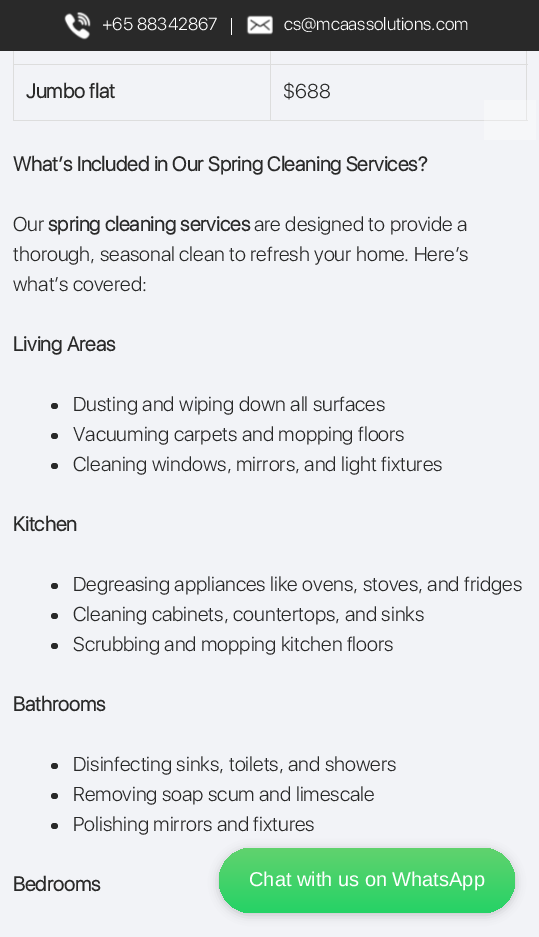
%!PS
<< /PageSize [539 937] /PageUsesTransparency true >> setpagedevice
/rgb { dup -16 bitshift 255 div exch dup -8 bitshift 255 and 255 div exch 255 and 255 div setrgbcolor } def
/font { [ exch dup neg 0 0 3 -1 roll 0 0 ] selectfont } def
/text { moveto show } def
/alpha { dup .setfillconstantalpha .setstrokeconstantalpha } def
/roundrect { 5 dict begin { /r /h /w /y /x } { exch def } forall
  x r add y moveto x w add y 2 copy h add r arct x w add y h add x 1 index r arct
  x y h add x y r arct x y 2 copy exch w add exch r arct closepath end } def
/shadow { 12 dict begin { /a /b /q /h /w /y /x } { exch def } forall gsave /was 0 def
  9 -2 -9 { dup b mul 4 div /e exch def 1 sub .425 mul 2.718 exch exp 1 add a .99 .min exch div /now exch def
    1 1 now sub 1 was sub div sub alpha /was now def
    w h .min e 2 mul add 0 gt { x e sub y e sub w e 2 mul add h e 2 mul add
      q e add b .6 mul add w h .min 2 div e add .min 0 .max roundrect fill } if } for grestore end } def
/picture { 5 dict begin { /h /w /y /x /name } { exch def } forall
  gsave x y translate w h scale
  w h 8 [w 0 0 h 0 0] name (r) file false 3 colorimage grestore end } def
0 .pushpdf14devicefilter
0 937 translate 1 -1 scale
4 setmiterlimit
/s1 { /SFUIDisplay-Light 17.5 font 16#FFFFFF rgb } def
/s2 { /SFUIDisplay-Bold 20 font 16#292929 rgb } def
/s3 { /SFUIDisplay-Light 20 font 16#292929 rgb } def
/s4 { /LiberationSans-Regular 20 font 16#FFFFFF rgb } def
16#F2F3F7 rgb
0 0 539 937 rectfill
16#F6F7F9 rgb
484 100 52 40 rectfill
16#292929 rgb
0 0 539 51 rectfill
(pic1.raw) 64 12 27 28 picture
s1
(+65 88342867) 102 30 text
231 18 1 17 rectfill
(pic2.raw) 246 15 27 20 picture
(cs@mcaassolutions.com) 284 30 text
16#DDDDDD rgb
270 64 258 1 rectfill
270 120 214 1 rectfill
270 64 1 57 rectfill
13 64 258 1 rectfill
270 51 1 14 rectfill
13 120 258 1 rectfill
13 51 1 70 rectfill
s2
(Jumbo flat) 26 98 text
16#DDDDDD rgb
526 51 1 49 rectfill
16#E7E7E7 rgb
526 100 1 21 rectfill
484 120 44 1 rectfill
s3
($688) 283 98 text
s2
(What’s Included in Our Spring Cleaning Services?) 13 171 text
s3
(Our) 13 231 text
s2
(spring cleaning services) 48 231 text
s3
(are designed to provide a) 254 231 text
(thorough, seasonal clean to refresh your home. Here’s) 13 261 text
(what’s covered:) 13 291 text
s2
(Living Areas) 13 351 text
51 403 7 6 3 roundrect fill
s3
(Dusting and wiping down all surfaces) 73 411 text
51 433 7 6 3 roundrect fill
(Vacuuming carpets and mopping floors) 73 441 text
51 463 7 6 3 roundrect fill
(Cleaning windows, mirrors, and light fixtures) 73 471 text
s2
(Kitchen) 13 531 text
51 583 7 6 3 roundrect fill
s3
(Degreasing appliances like ovens, stoves, and fridges) 73 591 text
51 613 7 6 3 roundrect fill
(Cleaning cabinets, countertops, and sinks) 73 621 text
51 643 7 6 3 roundrect fill
(Scrubbing and mopping kitchen floors) 73 651 text
s2
(Bathrooms) 13 711 text
51 763 7 6 3 roundrect fill
s3
(Disinfecting sinks, toilets, and showers) 73 771 text
51 793 7 6 3 roundrect fill
(Removing soap scum and limescale) 73 801 text
51 823 7 6 3 roundrect fill
(Polishing mirrors and fixtures) 73 831 text
s2
(Bedrooms) 13 891 text
16#000000 rgb
219 850 296 65 32.5 5 0.2 shadow
gsave 219 848 296 65 32.5 roundrect clip newpath
<< /ShadingType 2 /ColorSpace /DeviceRGB /Coords [367 848 367 913] /Extend [true true] /Function << /FunctionType 2 /Domain [0 1] /C0 [0.38 0.824 0.431] /C1 [0.145 0.827 0.4] /N 1 >> >> shfill grestore
s4
(Chat with us on WhatsApp) 249 886 text
.poppdf14devicefilter showpage
